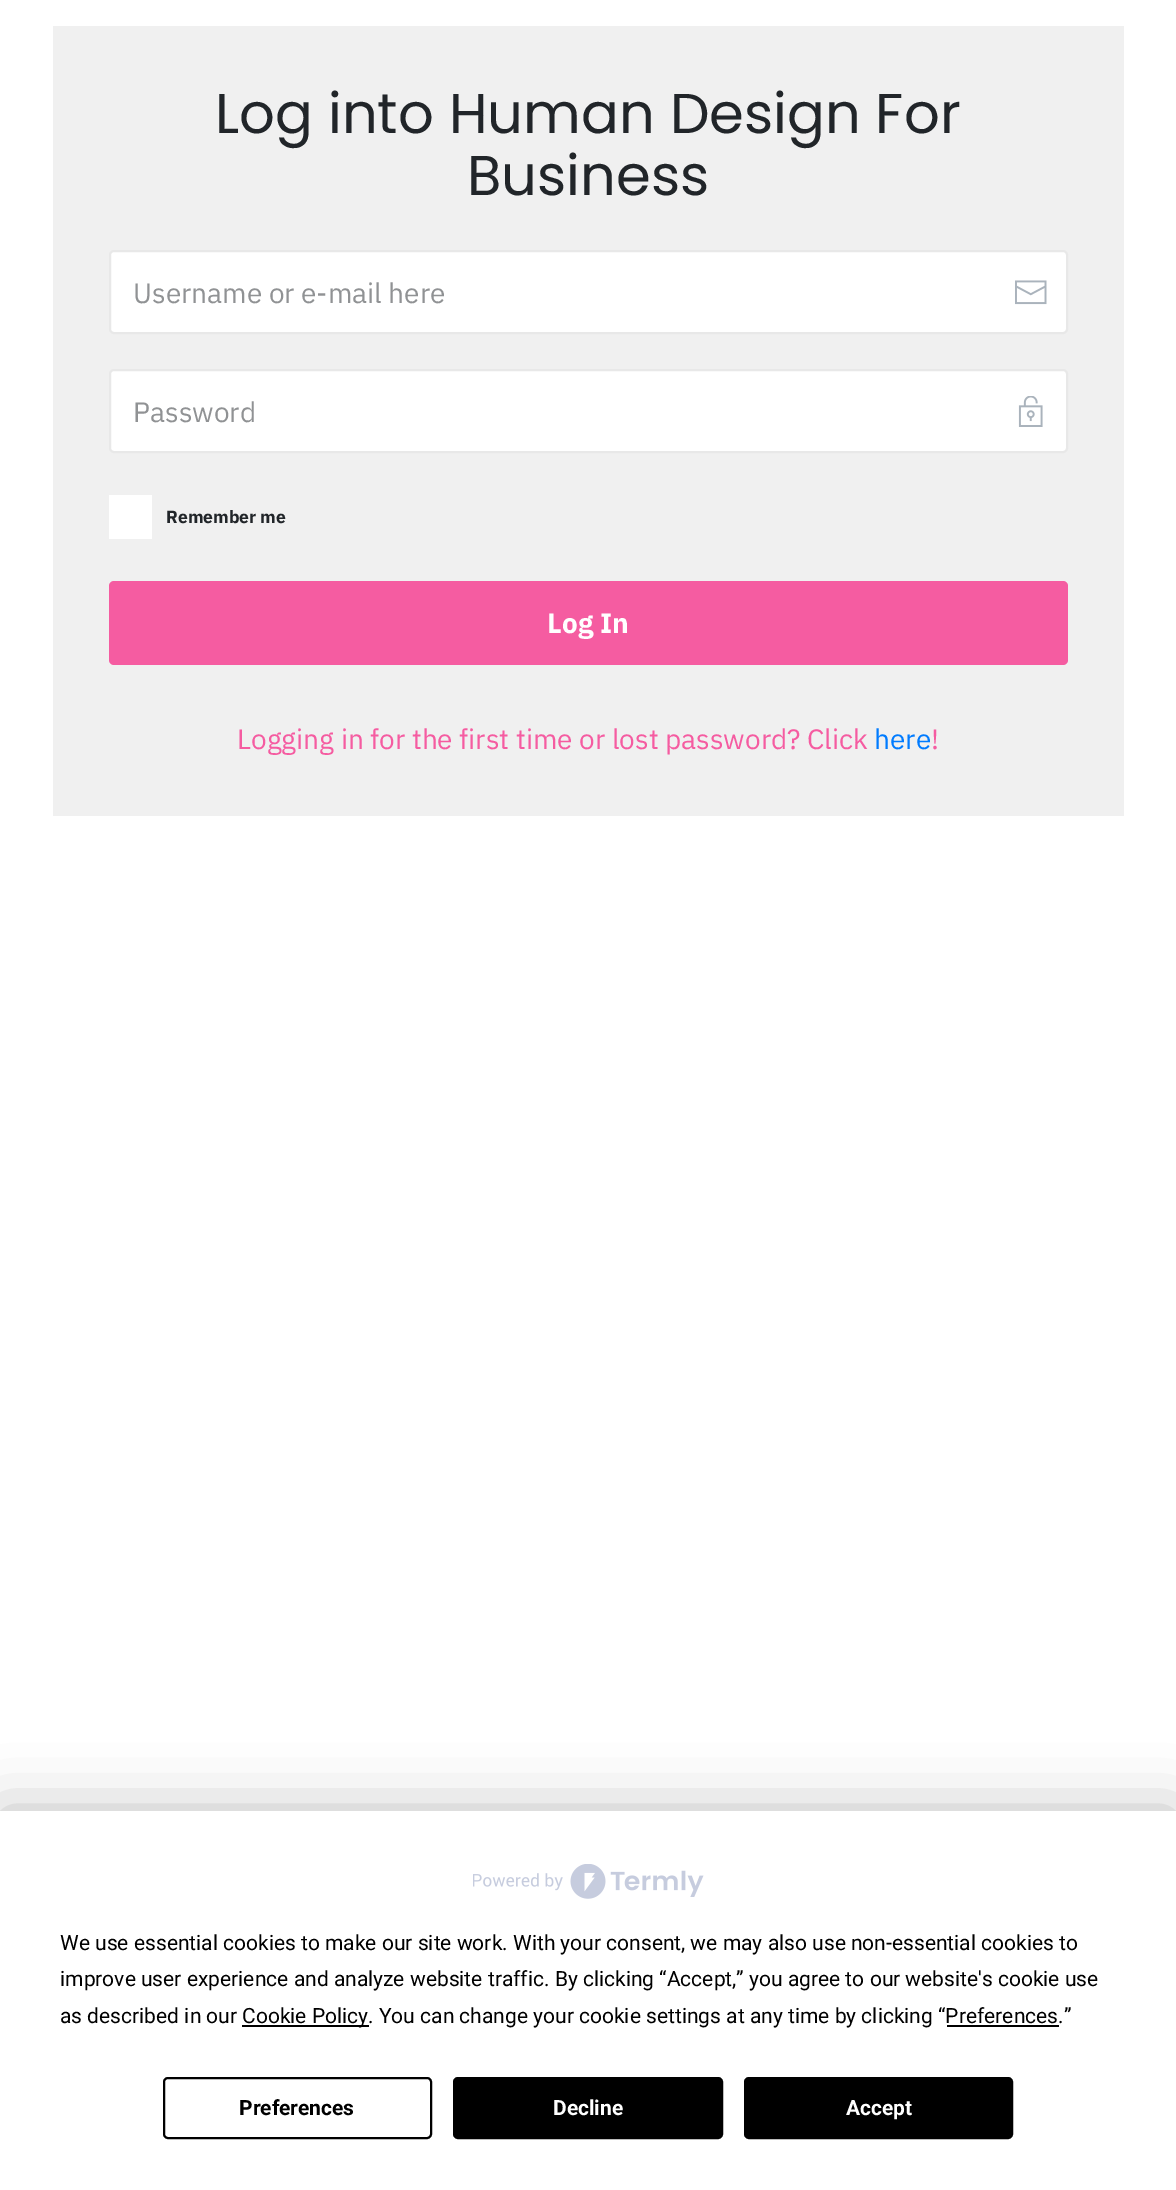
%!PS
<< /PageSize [1176 2190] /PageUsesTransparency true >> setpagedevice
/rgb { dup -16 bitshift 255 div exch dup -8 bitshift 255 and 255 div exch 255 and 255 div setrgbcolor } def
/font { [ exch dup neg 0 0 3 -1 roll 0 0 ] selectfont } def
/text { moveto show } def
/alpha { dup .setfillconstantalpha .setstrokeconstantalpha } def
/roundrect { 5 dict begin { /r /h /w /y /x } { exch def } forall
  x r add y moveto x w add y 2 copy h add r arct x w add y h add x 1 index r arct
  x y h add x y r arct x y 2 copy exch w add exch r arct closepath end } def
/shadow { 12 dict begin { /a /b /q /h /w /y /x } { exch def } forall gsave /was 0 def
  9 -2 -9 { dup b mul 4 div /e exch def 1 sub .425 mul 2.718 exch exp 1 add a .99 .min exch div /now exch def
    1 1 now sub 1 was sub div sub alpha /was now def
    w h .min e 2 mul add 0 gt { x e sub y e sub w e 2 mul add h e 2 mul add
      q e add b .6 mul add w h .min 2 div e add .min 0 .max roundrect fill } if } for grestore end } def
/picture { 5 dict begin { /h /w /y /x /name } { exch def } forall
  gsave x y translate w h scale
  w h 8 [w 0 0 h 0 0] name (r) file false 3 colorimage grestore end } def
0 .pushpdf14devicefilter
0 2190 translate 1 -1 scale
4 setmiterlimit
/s1 { /Poppins-Regular 56 font 16#212529 rgb } def
/s2 { /IBMPlexSans-Regular 28 font 16#909294 rgb } def
/s3 { /IBMPlexSans-Bold 17.5 font 16#212529 rgb } def
/s4 { /IBMPlexSans-Bold 28 font 16#FFFFFF rgb } def
/s5 { /IBMPlexSans-Regular 28 font 16#F55CA1 rgb } def
/s6 { /IBMPlexSans-Regular 28 font 16#007BFF rgb } def
/s7 { /Roboto-Regular 21 font 16#000000 rgb } def
/s8 { /Roboto-Bold 21 font 16#000000 rgb } def
/s9 { /Roboto-Bold 21 font 16#FFFFFF rgb } def
16#FFFFFF rgb
0 0 1176 2190 rectfill
16#F0F0F0 rgb
53 26 1071 790 rectfill
s1
(Log into Human Design For) 215 133 text
(Business) 467 195 text
16#FFFFFF rgb
110 251 957 82 4 roundrect gsave fill grestore
16#E8E8E8 rgb
2 setlinewidth
stroke
s2
(Username or e-mail here) 133 303 text
(pic1.raw) 1015 280 32 25 picture
16#FFFFFF rgb
110 370 957 82 4 roundrect gsave fill grestore
16#E8E8E8 rgb
stroke
s2
(Password) 133 422 text
(pic2.raw) 1018 396 25 31 picture
16#FFFFFF rgb
109 495 43 44 rectfill
s3
(Remember me) 166 523 text
16#F55CA1 rgb
109 581 959 84 5 roundrect fill
s4
(Log In) 547 633 text
s5
(Logging in for the first time or lost password? Click) 237 749 text
s6
(here) 874 749 text
s5
(!) 931 749 text
16#000000 rgb
0 1811 1176 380 0 30.5 0.25 shadow
16#FFFFFF rgb
0 1811 1176 379 rectfill
(pic3.raw) 473 1864 231 35 picture
s7
(We use essential cookies to make our site work. With your consent, we may also use non-essential cookies to) 60 1950 text
(improve user experience and analyze website traffic. By clicking “Accept,” you agree to our website's cookie use) 60 1986 text
(as described in our) 60 2023 text
242 2025 127 2 rectfill
(Cookie Policy. You can change your cookie settings at any time by clicking “Preferences.”) 242 2023 text
947 2025 112 2 rectfill
164 2078 267 60 4 roundrect stroke
s8
(Preferences) 239 2115 text
454 2078 268 60 4 roundrect gsave fill grestore
stroke
s9
(Decline) 553 2115 text
16#000000 rgb
745 2078 267 60 4 roundrect gsave fill grestore
stroke
s9
(Accept) 846 2115 text
.poppdf14devicefilter showpage
